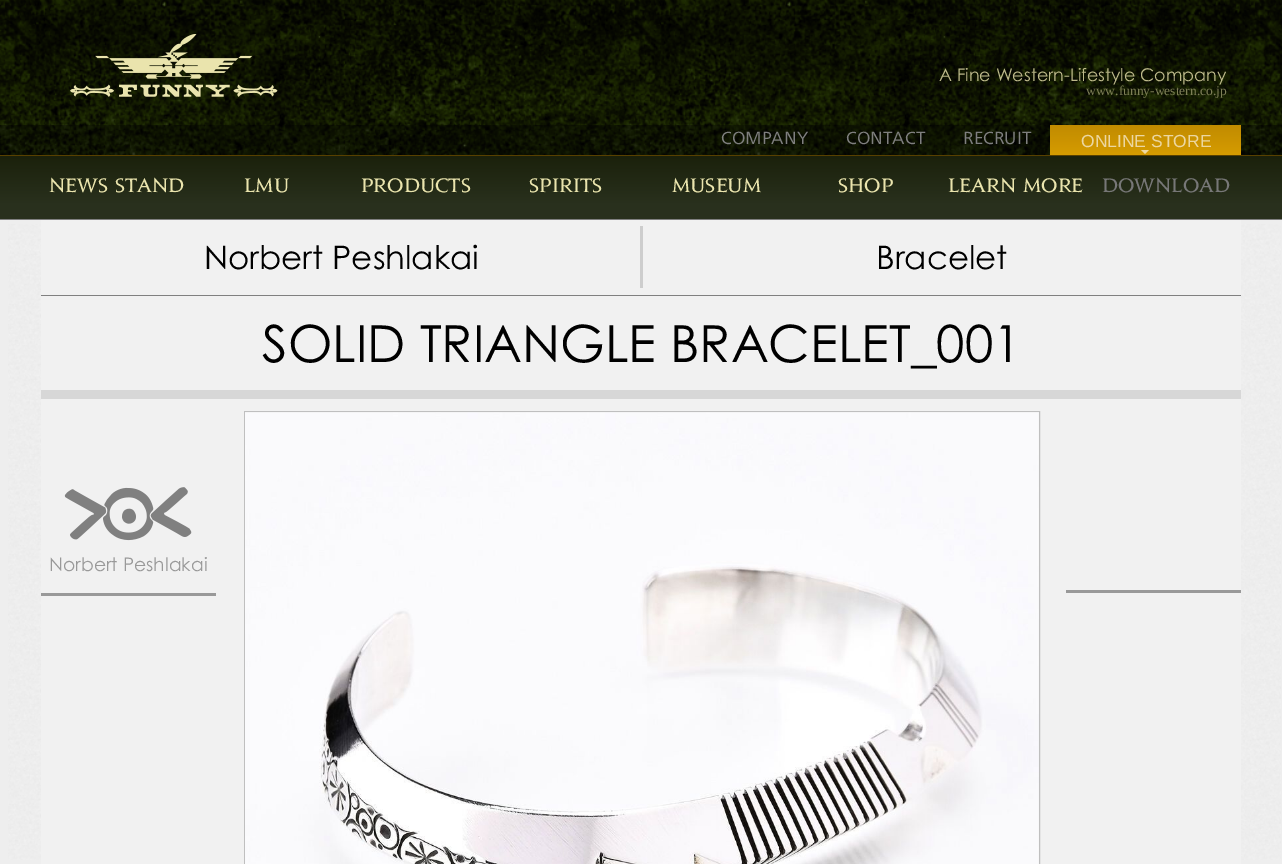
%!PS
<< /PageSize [1282 864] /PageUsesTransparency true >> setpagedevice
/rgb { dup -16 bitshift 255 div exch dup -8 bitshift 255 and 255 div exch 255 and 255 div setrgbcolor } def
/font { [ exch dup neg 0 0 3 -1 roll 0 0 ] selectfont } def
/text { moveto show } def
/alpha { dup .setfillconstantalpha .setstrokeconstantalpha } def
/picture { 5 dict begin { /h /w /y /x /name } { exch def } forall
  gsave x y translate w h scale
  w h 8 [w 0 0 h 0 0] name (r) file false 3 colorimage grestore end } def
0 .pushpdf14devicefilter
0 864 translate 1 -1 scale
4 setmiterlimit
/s1 { /CenturyGothic-Regular 17.5 font 16#BEBA8B rgb } def
/s2 { /LiberationSerif-Regular 13.5 font 16#7E7F57 rgb } def
/s3 { /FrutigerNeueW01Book-Regular 17.5 font 16#7F7F7F rgb } def
/s4 { /LiberationSans-Regular 17.5 font 16#ECD7A1 rgb } def
/s5 { /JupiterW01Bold-Bold 17.5 font 16#EAE4AD rgb } def
/s6 { /JupiterW01Bold-Bold 17.5 font 16#777777 rgb } def
/s7 { /CenturyGothic-Regular 32.5 font 16#000000 rgb } def
/s8 { /CenturyGothic-Regular 51.25 font 16#000000 rgb } def
/s9 { /CenturyGothic-Regular 18.75 font 16#999999 rgb } def
16#FFFFFF rgb
0 0 1282 864 rectfill
(pic1.raw) 0 0 1282 155 picture
(pic2.raw) 70 34 208 63 picture
s1
(A Fine Western-Lifestyle Company) 939 81 text
s2
(www.funny-western.co.jp) 1086 95 text
0.4 alpha
16#000000 rgb
0 125 1282 30 rectfill
1 alpha
16#584000 rgb
0 155 1282 1 rectfill
s3
(COMPANY) 721 144 text
(CONTACT) 846 144 text
(RECRUIT) 963 144 text
0.9 alpha
16#D59B00 rgb
1050 125 191 30 rectfill
gsave 1050 125 moveto 1241 125 lineto 1241 155 lineto 1050 155 lineto closepath clip newpath
<< /ShadingType 2 /ColorSpace /DeviceRGB /Coords [1146 125 1146 155] /Extend [true true] /Function << /FunctionType 2 /Domain [0 1] /C0 [0.753 0.545 0] /C1 [0.847 0.616 0] /N 1 >> >> shfill grestore
1 alpha
s4
(ONLINE STORE) 1081 147 text
16#EFD9A1 rgb
1141 150 moveto 1149 150 lineto 1145 154 lineto closepath fill
16#808080 rgb
0 219 1282 1 rectfill
gsave 0 156 moveto 1282 156 lineto 1282 219 lineto 0 219 lineto closepath clip newpath
<< /ShadingType 2 /ColorSpace /DeviceRGB /Coords [641 156 641 219] /Extend [true true] /Function << /FunctionType 3 /Domain [0 1] /Functions [<< /FunctionType 2 /Domain [0 1] /C0 [0.106 0.129 0.043] /C1 [0.161 0.188 0.114] /N 1 >> << /FunctionType 2 /Domain [0 1] /C0 [0.161 0.188 0.114] /C1 [0.161 0.188 0.114] /N 1 >>] /Bounds [0.75] /Encode [0 1 0 1] >> >> shfill grestore
s5
(NEWS STAND) 49 192 text
(LMU) 244 192 text
(PRODUCTS) 361 192 text
(SPIRITS) 529 192 text
(MUSEUM) 672 192 text
(SHOP) 838 192 text
(LEARN MORE) 948 192 text
s6
(DOWNLOAD) 1102 192 text
16#EEEEEE rgb
0 220 1282 644 rectfill
(pic3.raw) 8 224 1273 636 picture
16#F1F1F1 rgb
41 220 1200 644 rectfill
s7
(Norbert Peshlakai) 204 269 text
16#CDCDCD rgb
640 226 3 62 rectfill
16#808080 rgb
41 295 1200 1 rectfill
s7
(Bracelet) 876 269 text
16#D7D7D7 rgb
41 390 1200 9 rectfill
s8
(SOLID TRIANGLE BRACELET_001) 262 362 text
16#999999 rgb
41 593 175 3 rectfill
(pic4.raw) 64 487 128 54 picture
s9
(Norbert Peshlakai) 49 571 text
16#BFBFBF rgb
244.5 411.5 795 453 rectstroke
(pic5.raw) 245 412 794 452 picture
16#999999 rgb
1066 590 175 3 rectfill
.poppdf14devicefilter showpage
